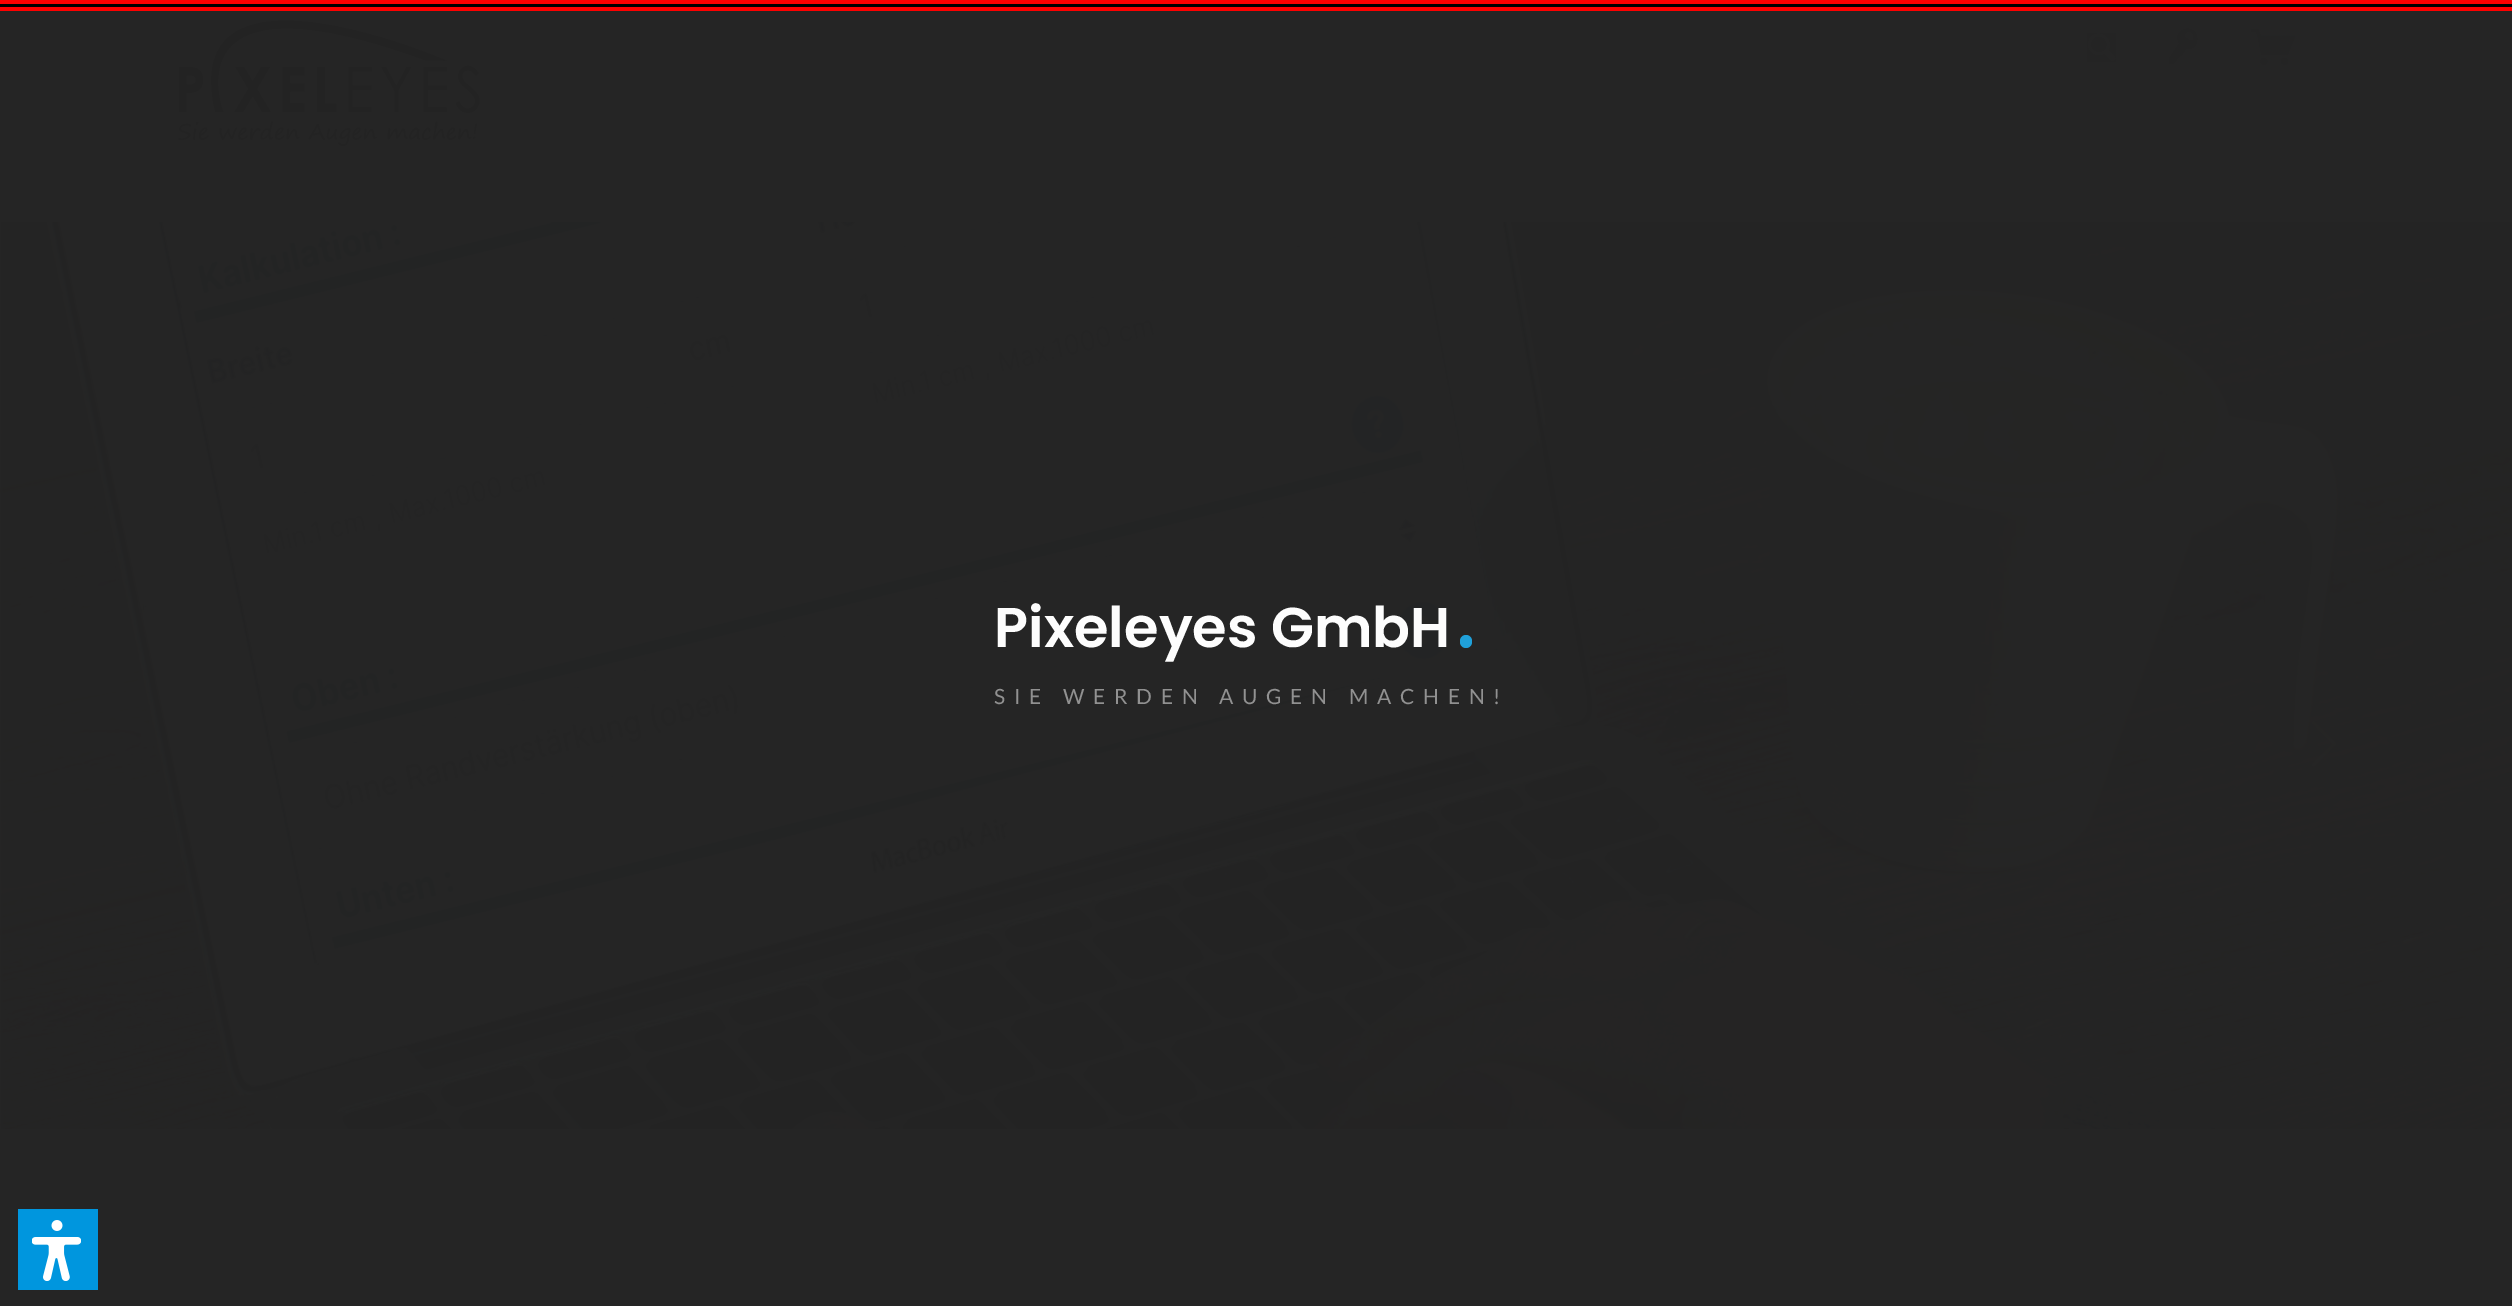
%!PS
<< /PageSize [2512 1306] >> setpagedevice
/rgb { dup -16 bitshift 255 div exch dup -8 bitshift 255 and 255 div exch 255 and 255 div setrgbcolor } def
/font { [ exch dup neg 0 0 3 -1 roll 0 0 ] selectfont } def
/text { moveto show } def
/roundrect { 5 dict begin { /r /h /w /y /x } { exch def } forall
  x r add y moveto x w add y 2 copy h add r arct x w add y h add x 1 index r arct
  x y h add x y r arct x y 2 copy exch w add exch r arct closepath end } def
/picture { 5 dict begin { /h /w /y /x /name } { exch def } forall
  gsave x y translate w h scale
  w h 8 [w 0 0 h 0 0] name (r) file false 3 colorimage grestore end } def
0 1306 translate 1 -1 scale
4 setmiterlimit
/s1 { /Poppins-SemiBold 56 font 16#FDFDFD rgb } def
16#252525 rgb
0 0 2512 1306 rectfill
16#000000 rgb
0 4 2512 3 rectfill
16#FF0000 rgb
0 0 2512 4 rectfill
0 7 2512 4 rectfill
16#0096DE rgb
18 1209 80 81 rectfill
(pic1.raw) 32 1220 49 61 picture
(pic2.raw) 178 20 302 127 picture
(pic3.raw) 2087 33 29 29 picture
(pic4.raw) 2168 28 30 37 picture
(pic5.raw) 2250 28 46 38 picture
(pic6.raw) 0 222 2512 907 picture
(pic7.raw) 177 721 24 46 picture
(pic8.raw) 2311 721 26 46 picture
s1
(Pixeleyes GmbH) 994 647 text
16#20A1DA rgb
1460 635 12 13 6 roundrect fill
/Lato-Regular 21 font
16#919191 rgb
994 704 moveto 8.75 0 (SIE WERDEN AUGEN MACHEN!) ashow
showpage
